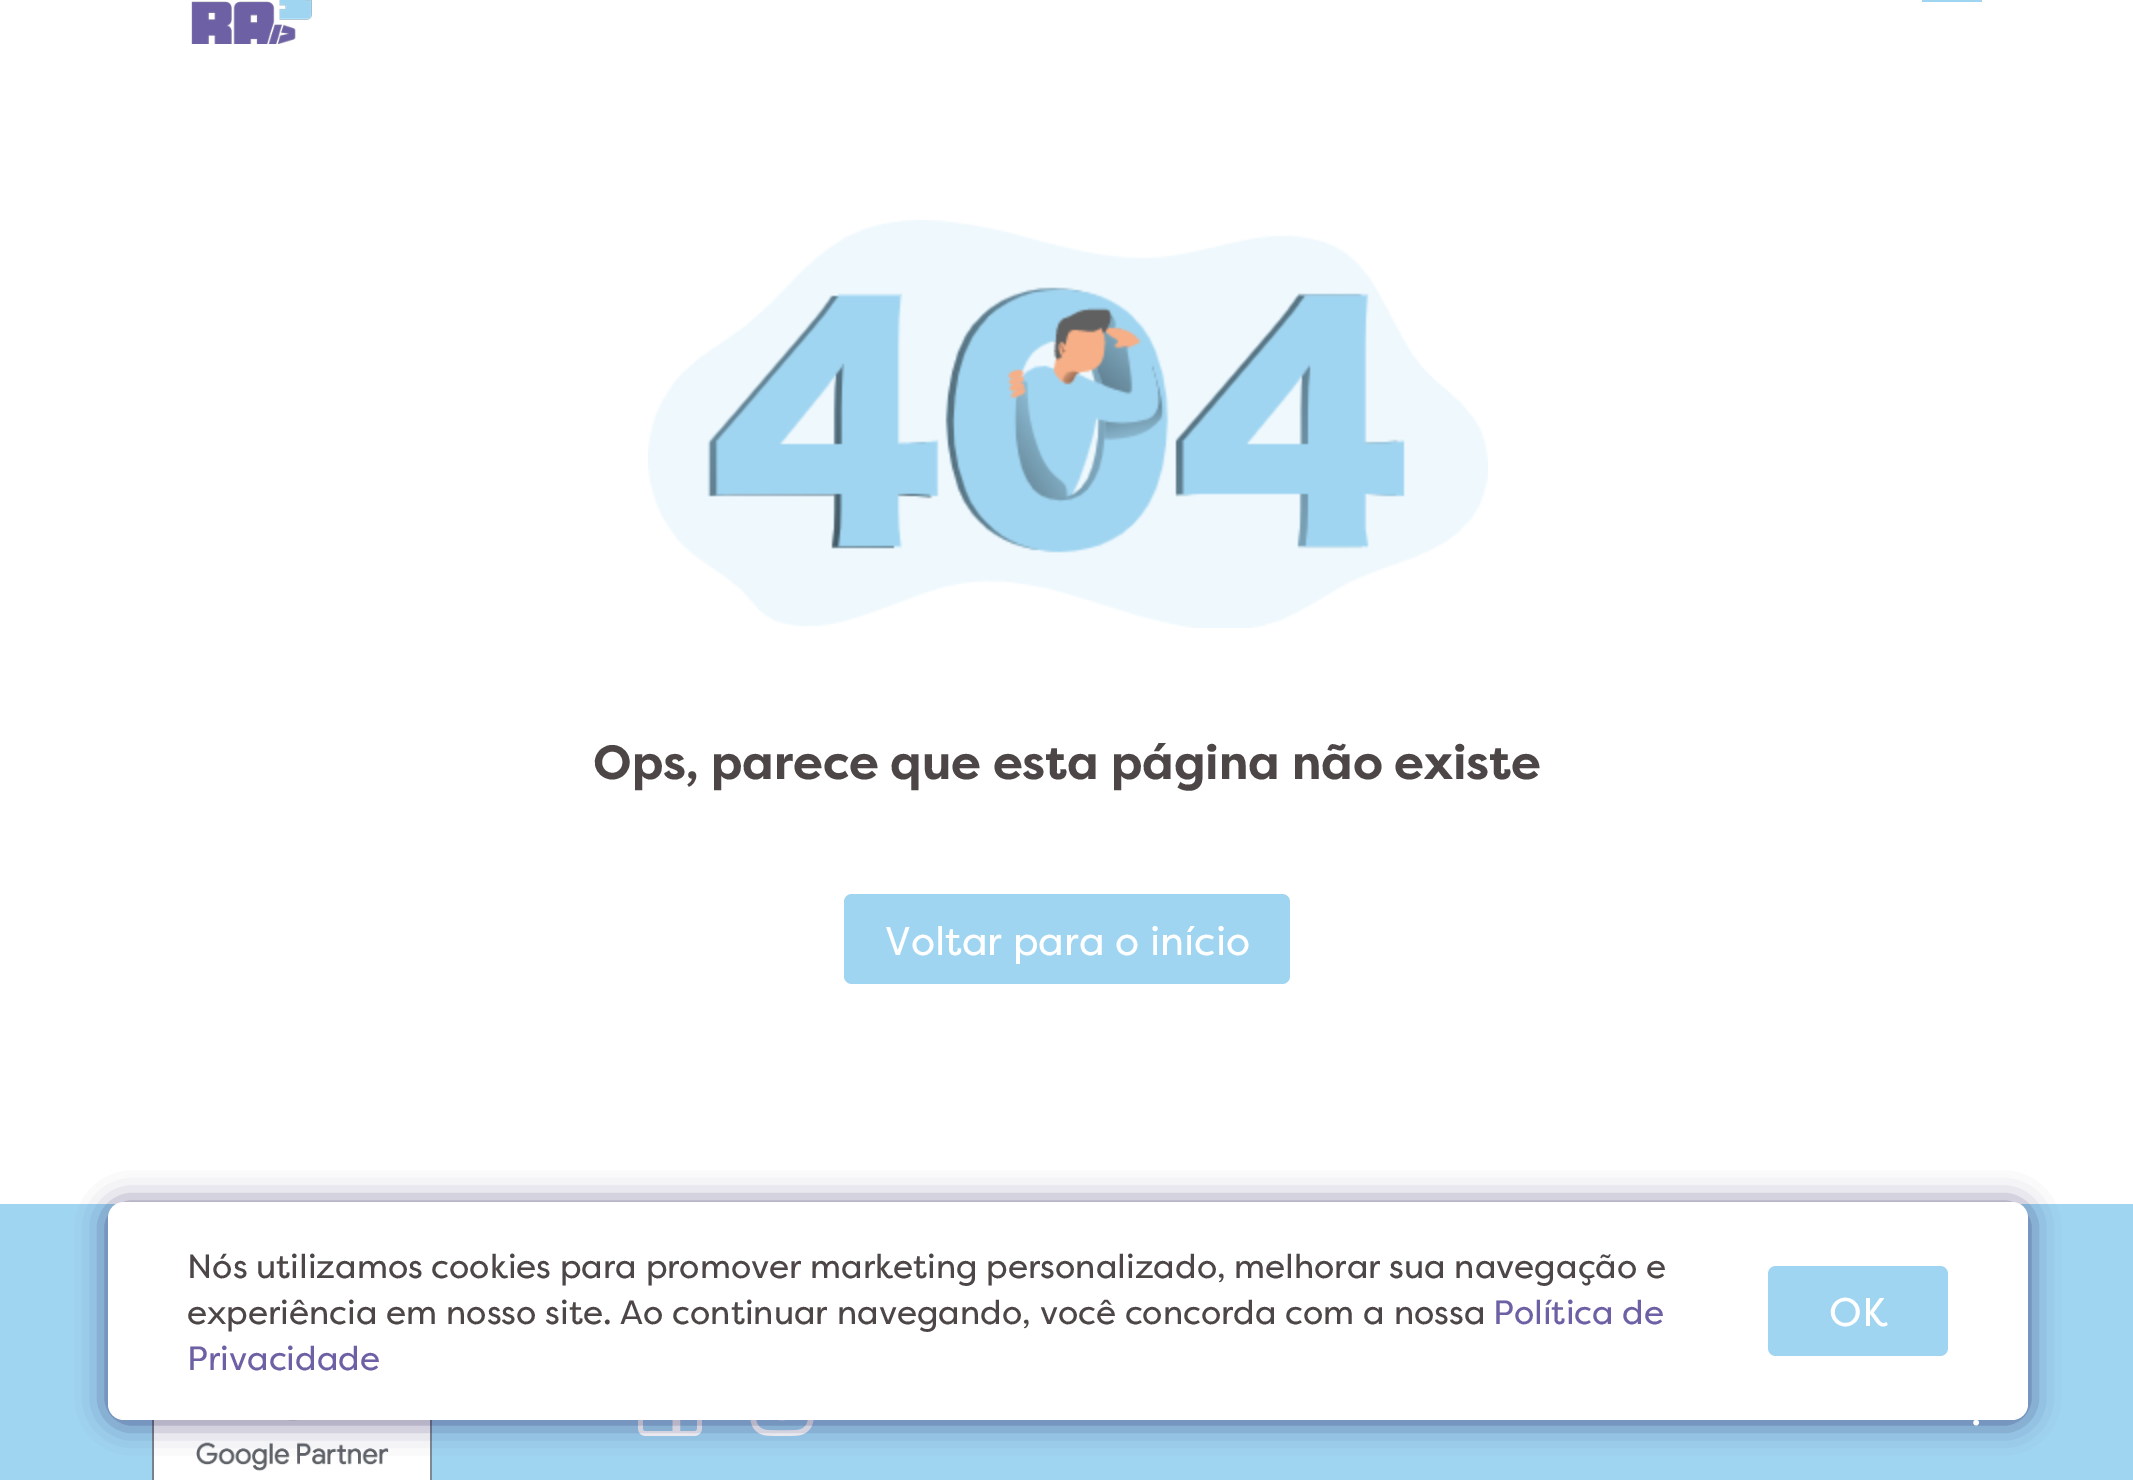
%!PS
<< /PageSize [2133 1480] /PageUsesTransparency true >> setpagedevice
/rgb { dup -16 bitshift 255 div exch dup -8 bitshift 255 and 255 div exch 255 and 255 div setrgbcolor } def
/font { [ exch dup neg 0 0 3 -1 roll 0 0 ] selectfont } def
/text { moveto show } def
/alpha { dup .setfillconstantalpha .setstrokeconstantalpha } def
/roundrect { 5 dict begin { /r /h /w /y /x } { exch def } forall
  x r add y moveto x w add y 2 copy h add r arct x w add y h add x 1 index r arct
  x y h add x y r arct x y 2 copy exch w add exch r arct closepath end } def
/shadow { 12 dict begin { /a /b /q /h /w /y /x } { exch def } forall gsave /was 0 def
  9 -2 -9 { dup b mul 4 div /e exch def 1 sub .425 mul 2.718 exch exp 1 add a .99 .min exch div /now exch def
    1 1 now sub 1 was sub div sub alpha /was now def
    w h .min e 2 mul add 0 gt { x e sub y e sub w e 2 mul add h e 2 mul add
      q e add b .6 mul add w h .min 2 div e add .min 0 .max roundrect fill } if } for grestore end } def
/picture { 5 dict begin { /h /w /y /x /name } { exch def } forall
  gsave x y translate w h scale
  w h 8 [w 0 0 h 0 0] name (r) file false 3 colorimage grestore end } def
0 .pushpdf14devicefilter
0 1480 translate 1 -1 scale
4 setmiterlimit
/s1 { /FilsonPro-Bold 48 font 16#4D4646 rgb } def
/s2 { /FilsonPro-Regular 40 font 16#FFFFFF rgb } def
/s3 { /FilsonPro-Regular 33.6 font 16#4D4646 rgb } def
/s4 { /FilsonPro-Regular 33.6 font 16#6E60A4 rgb } def
16#FFFFFF rgb
0 0 2133 1480 rectfill
(pic1.raw) 191 0 121 44 picture
16#A0D5F1 rgb
1922 2 moveto 1982 2 lineto 1982 -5 lineto 1922 -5 lineto closepath 1922 -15 moveto 1982 -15 lineto 1982 -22 lineto 1922 -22 lineto closepath 1922 -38 moveto 1922 -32 lineto 1982 -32 lineto 1982 -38 lineto closepath fill
(pic2.raw) 648 220 840 408 picture
s1
(Ops, parece que esta página não existe) 593 779 text
16#A0D5F1 rgb
844 894 446 90 8 roundrect fill
s2
(Voltar para o início) 885 955 text
16#A0D5F1 rgb
0 1204 2133 276 rectfill
(pic3.raw) 152 1420 280 60 picture
(pic4.raw) 638 1420 64 16 picture
(pic5.raw) 750 1420 64 16 picture
16#0F0046 rgb
108 1204 1920 218 16 15 0.6 shadow
16#FFFFFF rgb
108 1202 1920 218 16 roundrect fill
/FilsonPro-Regular 33.6 font
16#4D4646 rgb
187 1278 moveto -0.25 0 32 (Nós utilizamos cookies para promover marketing personalizado, melhorar sua navegação e) widthshow
(experiência em nosso site. Ao continuar navegando, você concorda com a nossa) 187 1324 text
s4
(Política de) 1493 1324 text
(Privacidade) 187 1370 text
16#A0D5F1 rgb
1768 1266 180 90 8 roundrect fill
s2
(OK) 1829 1326 text
(.) 1971 1425 text
.poppdf14devicefilter showpage
